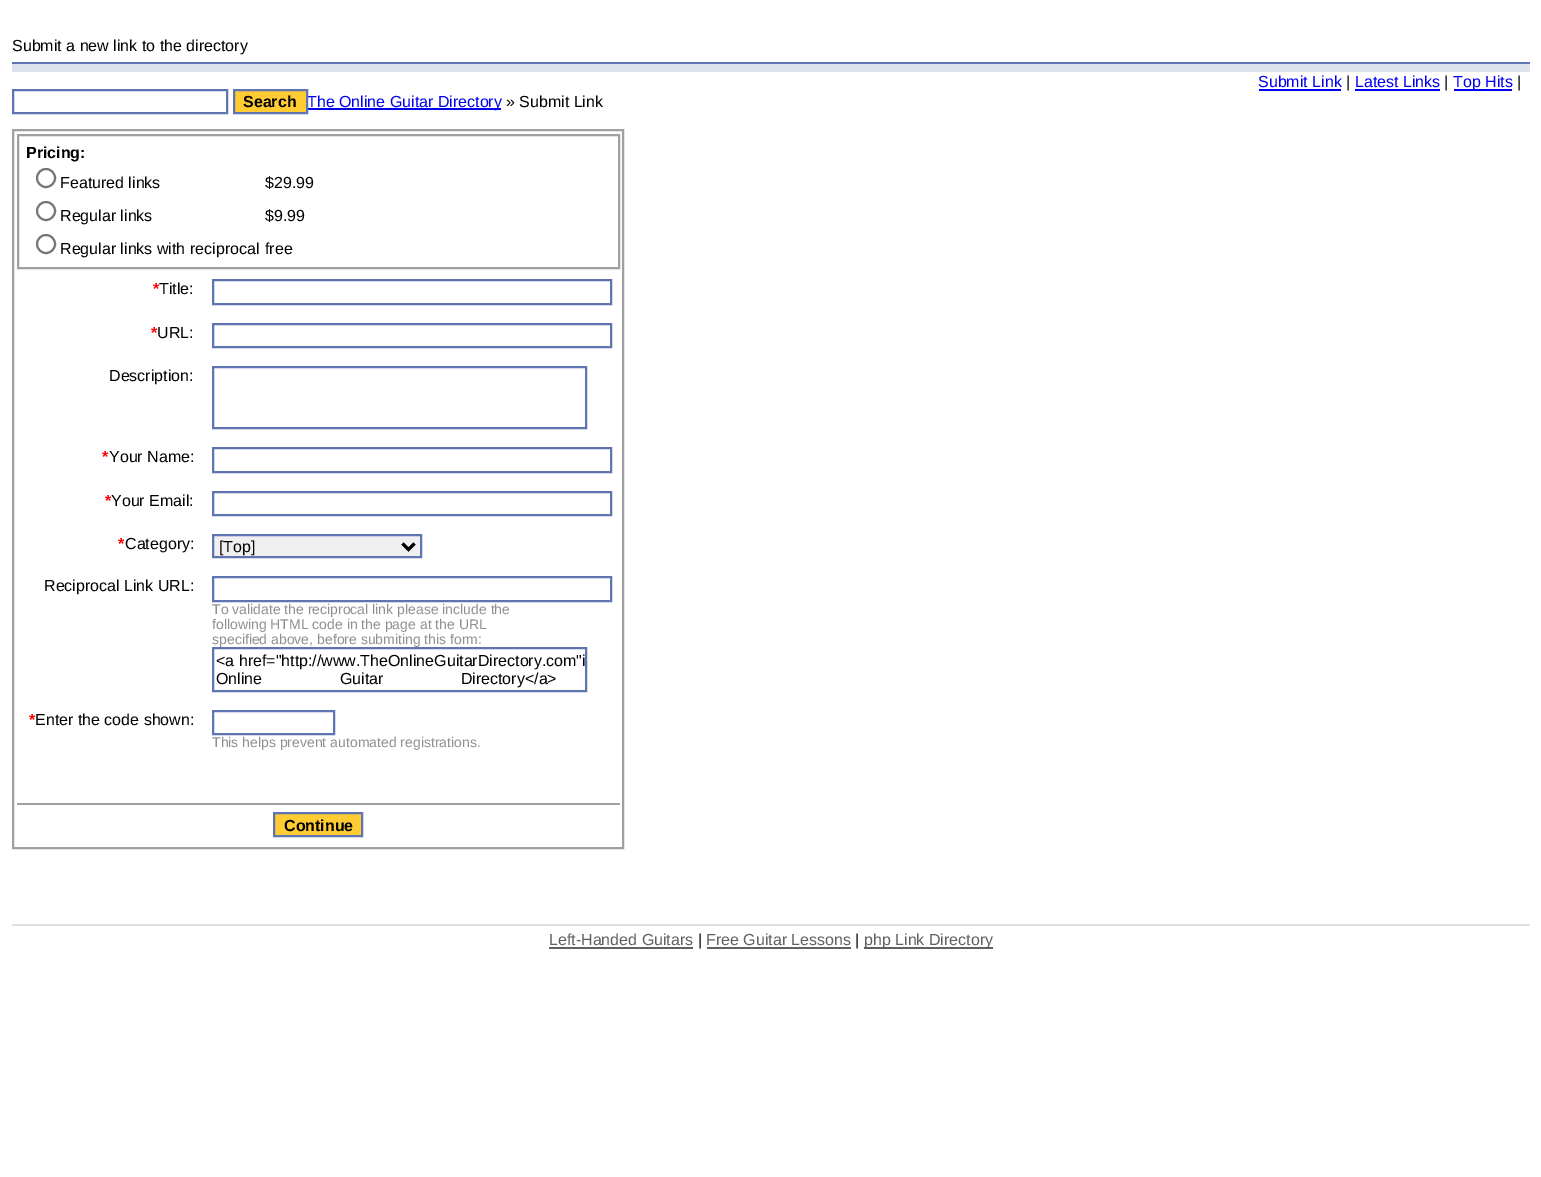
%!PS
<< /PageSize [1541 1177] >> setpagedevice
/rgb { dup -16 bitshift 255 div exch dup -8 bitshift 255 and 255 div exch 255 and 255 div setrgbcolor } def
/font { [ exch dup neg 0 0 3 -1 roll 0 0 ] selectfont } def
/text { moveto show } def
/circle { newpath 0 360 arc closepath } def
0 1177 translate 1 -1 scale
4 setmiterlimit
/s1 { /LiberationSans-Regular 16 font 16#000000 rgb } def
/s2 { /LiberationSans-Regular 16 font 16#0000EE rgb } def
/s3 { /LiberationSans-Bold 16 font 16#000000 rgb } def
/s4 { /LiberationSans-Bold 16 font 16#FF0000 rgb } def
/s5 { /LiberationSans-Regular 14 font 16#909090 rgb } def
/s6 { /LiberationSans-Regular 16 font 16#606060 rgb } def
16#FFFFFF rgb
0 0 1541 1177 rectfill
s1
(Submit a new link to the directory) 12 51 text
16#DDE2EC rgb
12 64 1518 8 rectfill
16#5E74B3 rgb
12 62 1518 2 rectfill
s2
(Submit Link) 1258 87 text
1259 89 82 2 rectfill
s1
(|) 1346 87 text
s2
(Latest Links) 1355 87 text
1355 89 85 2 rectfill
s1
(|) 1444 87 text
16#0000EE rgb
1454 89 58 2 rectfill
(Top Hits) 1453 87 text
s1
(|) 1517 87 text
16#5E74B3 rgb
2 setlinewidth
13 90 214 23 rectstroke
16#0000EE rgb
308 108 193 2 rectfill
(The Online Guitar Directory) 307 107 text
16#FFCC33 rgb
234 90 moveto 307 90 lineto 307 113 lineto 234 113 lineto closepath gsave fill grestore
16#5E74B3 rgb
stroke
s3
(Search) 243 107 text
s1
(» Submit Link) 506 107 text
16#A0A0A0 rgb
13 130 610 718 rectstroke
18 135 601 133 rectstroke
s3
(Pricing:) 26 158 text
16#767676 rgb
46 178 9 circle stroke
s1
(Featured links) 60 188 text
($29.99) 265 188 text
16#767676 rgb
46 211 9 circle stroke
s1
(Regular links) 60 221 text
($9.99) 265 221 text
16#767676 rgb
46 244 9 circle stroke
s1
(Regular links with reciprocal) 60 254 text
(free) 265 254 text
s4
(*) 153 294 text
s1
(Title:) 159 294 text
16#5E74B3 rgb
213 280 398 24 rectstroke
s4
(*) 151 338 text
s1
(URL:) 157 338 text
16#5E74B3 rgb
213 324 398 23 rectstroke
s1
(Description:) 109 381 text
16#5E74B3 rgb
213 367 373 61 rectstroke
s4
(*) 102 462 text
s1
(Your Name:) 109 462 text
16#5E74B3 rgb
213 448 398 24 rectstroke
s4
(*) 105 506 text
s1
(Your Email:) 111 506 text
16#5E74B3 rgb
213 492 398 23 rectstroke
s4
(*) 118 549 text
s1
(Category:) 125 549 text
16#EFEFEF rgb
213 535 moveto 421 535 lineto 421 557 lineto 213 557 lineto closepath gsave fill grestore
16#5E74B3 rgb
stroke
16#000000 rgb
3 setlinewidth
402.5 543.5 moveto 408.5 549.5 lineto 414.5 543.5 lineto stroke
([Top]) 219 552 text
(Reciprocal Link URL:) 44 591 text
16#5E74B3 rgb
2 setlinewidth
213 577 398 24 rectstroke
s5
(To validate the reciprocal link please include the) 212 614 text
(following HTML code in the page at the URL) 212 629 text
(specified above, before submiting this form:) 212 644 text
16#5E74B3 rgb
213 648 373 43 rectstroke
s1
(<a href="http://www.TheOnlineGuitarDirectory.com") 216 666 text
(i) 582 666 text
216 684 moveto 73 0 32 (Online Guitar Directory</a>) widthshow
s4
(*) 29 725 text
s1
(Enter the code shown:) 35 725 text
16#5E74B3 rgb
213 711 121 23 rectstroke
s5
(This helps prevent automated registrations.) 212 747 text
16#A0A0A0 rgb
17 803 603 2 rectfill
16#FFCC33 rgb
274 813 moveto 362 813 lineto 362 836 lineto 274 836 lineto closepath gsave fill grestore
16#5E74B3 rgb
stroke
s3
(Continue) 284 831 text
16#E0E0E0 rgb
12 924 1518 2 rectfill
s6
(Left-Handed Guitars) 549 945 text
549 947 144 2 rectfill
s1
(|) 698 945 text
s6
(Free Guitar Lessons) 706 945 text
707 947 144 2 rectfill
s1
(|) 855 945 text
16#606060 rgb
864 947 129 2 rectfill
(php Link Directory) 864 945 text
showpage
